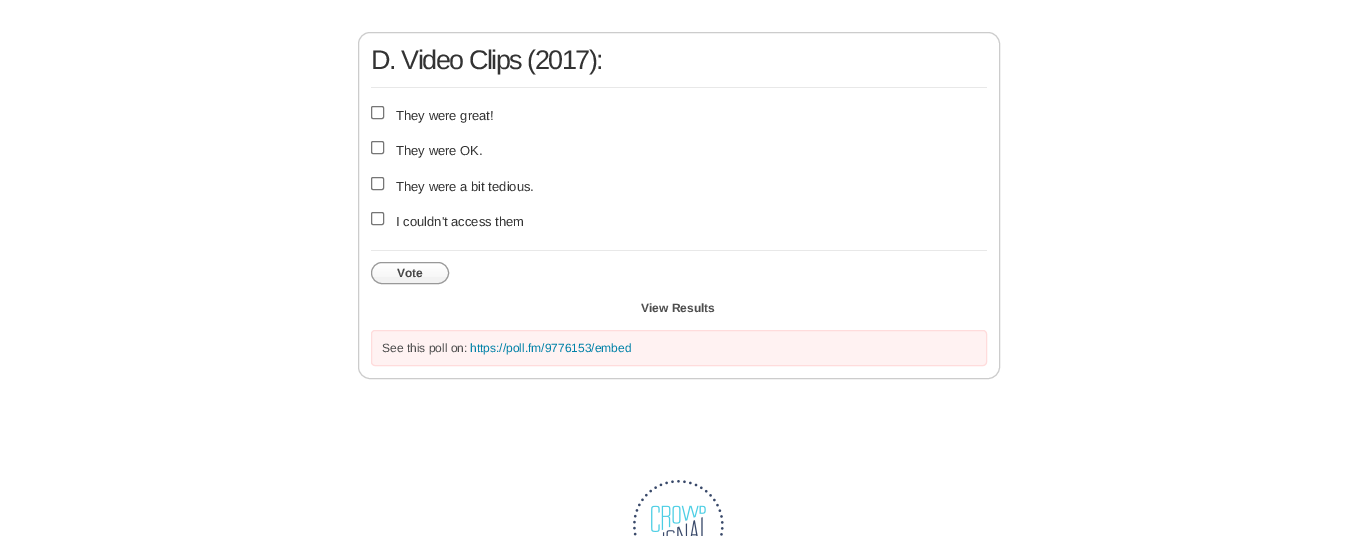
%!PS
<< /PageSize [1355 536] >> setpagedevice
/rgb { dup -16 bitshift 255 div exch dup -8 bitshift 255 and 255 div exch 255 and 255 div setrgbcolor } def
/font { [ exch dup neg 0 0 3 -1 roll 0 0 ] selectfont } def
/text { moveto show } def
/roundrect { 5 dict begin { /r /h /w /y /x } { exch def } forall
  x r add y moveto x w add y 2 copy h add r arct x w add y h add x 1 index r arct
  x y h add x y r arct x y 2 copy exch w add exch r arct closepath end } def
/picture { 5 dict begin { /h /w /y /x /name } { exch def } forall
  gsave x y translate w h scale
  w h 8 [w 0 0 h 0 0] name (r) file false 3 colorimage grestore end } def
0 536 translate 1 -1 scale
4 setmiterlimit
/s1 { /LiberationSans-Regular 13 font 16#333333 rgb } def
/s2 { /LiberationSans-Bold 12 font 16#464646 rgb } def
/s3 { /LiberationSans-Bold 12 font 16#4E4E4E rgb } def
/s4 { /LiberationSans-Regular 12 font 16#4E4E4E rgb } def
/s5 { /LiberationSans-Regular 12 font 16#0182A8 rgb } def
16#FFFFFF rgb
0 0 1355 536 rectfill
16#CCCCCC rgb
358.5 32.5 641 346 11.5 roundrect stroke
/LiberationSans-Regular 27 font
16#333333 rgb
371 69 moveto -1.5 0 (D. Video Clips \(2017\):) ashow
16#E8E8E8 rgb
371 87 616 1 rectfill
371 250 616 1 rectfill
16#767676 rgb
371.5 106.5 12 12 1.5 roundrect stroke
s1
(They were great!) 396 120 text
16#767676 rgb
371.5 141.5 12 12 1.5 roundrect stroke
s1
(They were OK.) 396 155 text
16#767676 rgb
371.5 177.5 12 12 1.5 roundrect stroke
s1
(They were a bit tedious.) 396 191 text
16#767676 rgb
371.5 212.5 12 12 1.5 roundrect stroke
s1
(I couldn't access them) 396 226 text
16#F2F2F2 rgb
371 262 78 22 11 roundrect fill
(pic1.raw) 371 263 78 14 picture
16#999999 rgb
371.5 262.5 77 21 10.5 roundrect stroke
s2
(Vote) 397 277 text
s3
(View Results) 641 312 text
16#FFF2F2 rgb
371.5 330.5 615 35 3.5 roundrect gsave fill grestore
16#FFDCDC rgb
stroke
s4
(See this poll on:) 382 352 text
s5
(https://poll.fm/9776153/embed) 470 352 text
(pic2.raw) 633 480 91 56 picture
showpage
